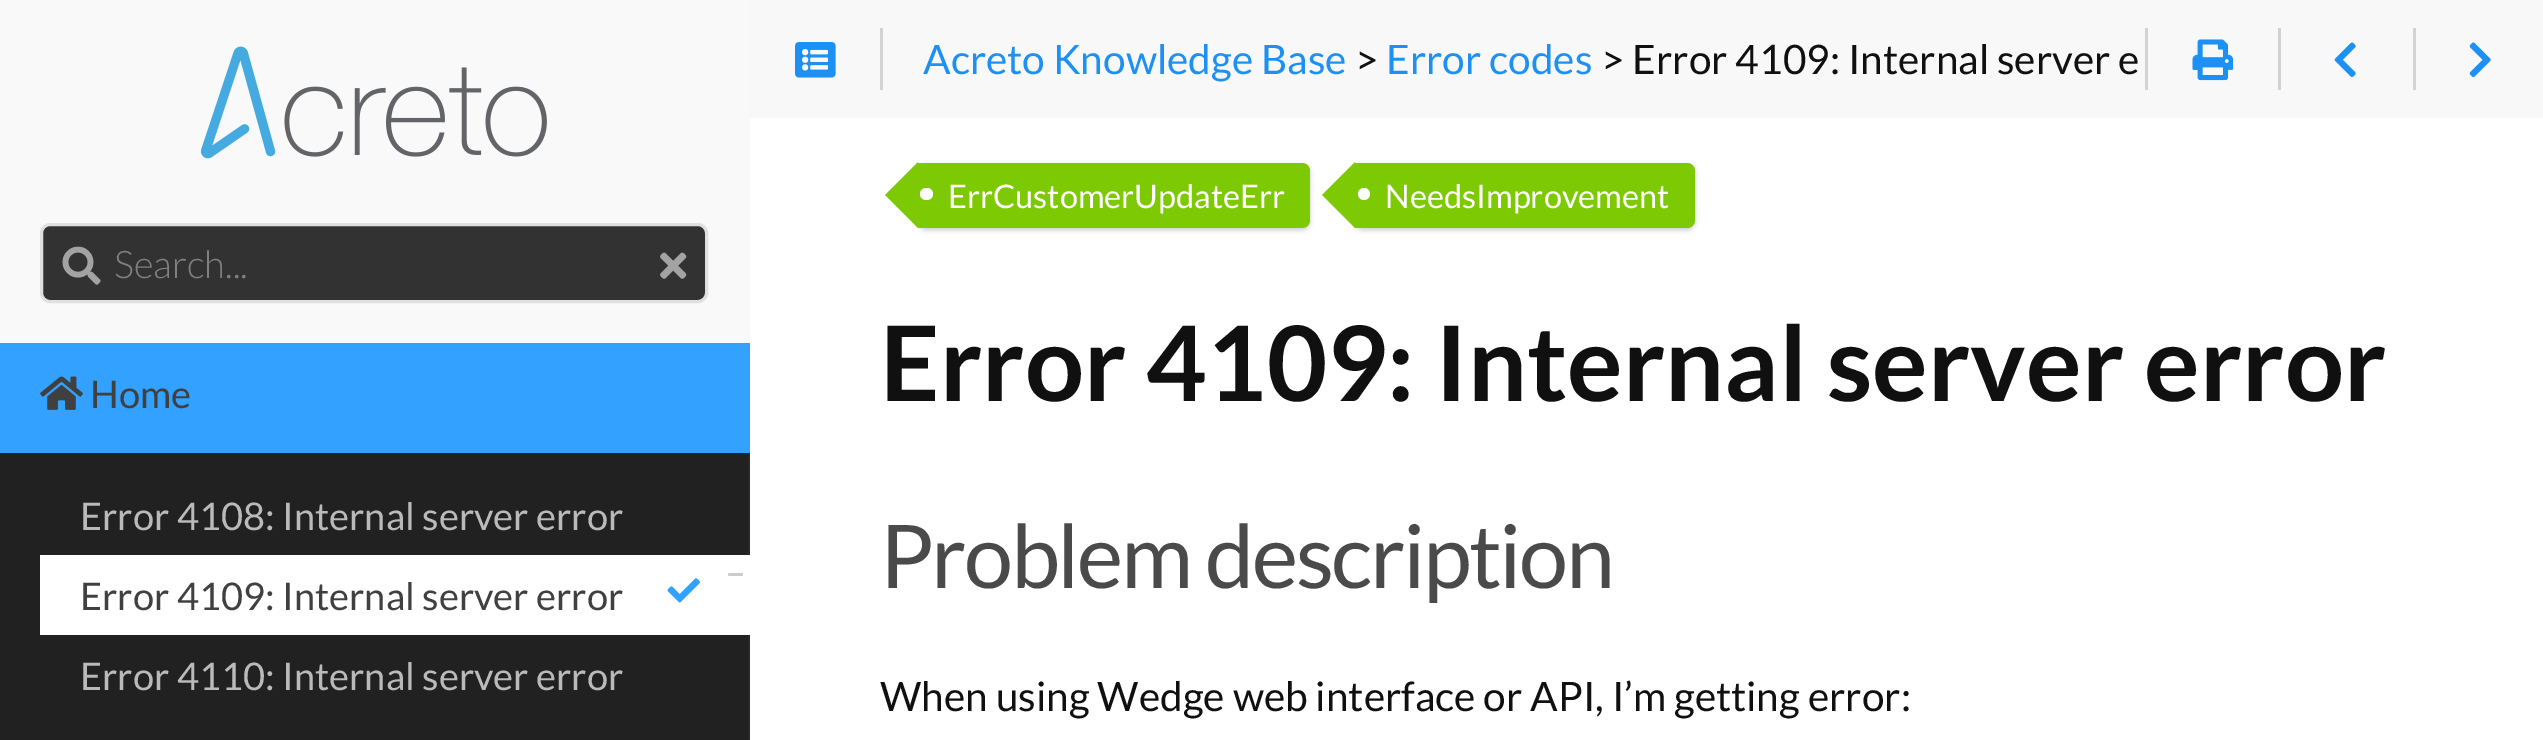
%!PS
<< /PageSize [2543 740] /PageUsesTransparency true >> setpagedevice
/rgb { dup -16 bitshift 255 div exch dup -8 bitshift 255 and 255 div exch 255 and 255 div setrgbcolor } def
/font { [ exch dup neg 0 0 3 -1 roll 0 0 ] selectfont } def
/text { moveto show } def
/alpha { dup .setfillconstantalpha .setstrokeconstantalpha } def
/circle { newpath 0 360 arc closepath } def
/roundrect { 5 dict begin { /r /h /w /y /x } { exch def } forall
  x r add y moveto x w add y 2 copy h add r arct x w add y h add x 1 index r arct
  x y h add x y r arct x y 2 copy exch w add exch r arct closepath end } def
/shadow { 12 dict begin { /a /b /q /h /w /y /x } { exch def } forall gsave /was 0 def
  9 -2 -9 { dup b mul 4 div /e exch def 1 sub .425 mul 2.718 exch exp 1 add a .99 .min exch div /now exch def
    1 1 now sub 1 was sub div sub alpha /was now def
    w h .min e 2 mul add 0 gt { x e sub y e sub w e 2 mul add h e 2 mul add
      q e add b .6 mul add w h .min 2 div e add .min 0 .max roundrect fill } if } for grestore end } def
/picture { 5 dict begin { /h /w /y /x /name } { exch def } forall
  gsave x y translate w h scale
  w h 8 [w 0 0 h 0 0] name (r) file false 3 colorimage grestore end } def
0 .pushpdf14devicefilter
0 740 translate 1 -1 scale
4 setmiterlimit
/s1 { /Lato-Light 38.1 font 16#808080 rgb } def
/s2 { /Lato-Regular 38.1 font 16#404040 rgb } def
/s3 { /Lato-Regular 38.1 font 16#BABABA rgb } def
/s4 { /Lato-Regular 40.6 font 16#1C90F3 rgb } def
/s5 { /Lato-Regular 40.6 font 16#101010 rgb } def
/s6 { /Lato-Regular 32.5 font 16#FFFFFF rgb } def
/s7 { /Lato-Bold 104 font 16#101010 rgb } def
16#FFFFFF rgb
0 0 2543 740 rectfill
16#282828 rgb
748 453 2 287 rectfill
16#F9F9F9 rgb
0 0 750 343 rectfill
(pic1.raw) 200 46 347 113 picture
16#323232 rgb
41.5 224.5 665 77 8.5 roundrect gsave fill grestore
16#E0E0E0 rgb
3 setlinewidth
stroke
(pic2.raw) 62 246 39 39 picture
s1
(Search...) 114 278 text
(pic3.raw) 660 252 27 27 picture
16#33A1FF rgb
0 343 750 110 rectfill
(pic4.raw) 40 376 43 34 picture
s2
(Home) 90 408 text
16#212121 rgb
0 453 748 287 rectfill
s3
(Error 4108: Internal server error) 80 530 text
16#FFFFFF rgb
40 555 710 80 rectfill
s2
(Error 4109: Internal server error) 80 610 text
(pic5.raw) 667 578 33 25 picture
s3
(Error 4110: Internal server error) 80 690 text
16#CCCCCC rgb
728 573 15 3 1.5 roundrect fill
16#F8F8F8 rgb
750 0 1793 118 rectfill
16#D2D2D2 rgb
880 28 3 62 rectfill
(pic6.raw) 795 42 41 36 picture
s4
(Acreto Knowledge Base) 923 74 text
s5
(>) 1355 74 text
s4
(Error codes) 1386 74 text
s5
(> Error 4109: Internal server e) 1601 74 text
16#D2D2D2 rgb
2145 28 3 62 rectfill
(pic7.raw) 2192 39 42 42 picture
2278 28 3 62 rectfill
(pic8.raw) 2334 42 22 35 picture
2413 28 3 62 rectfill
(pic9.raw) 2469 42 22 35 picture
16#000000 rgb
918 165 392 65 8 2.5 0.2 shadow
16#7DC903 rgb
918 163 moveto 1302 163 lineto 1306.5 163 1310 166.5 1310 171 curveto 1310 220 lineto 1310 224.5 1306.5 228 1302 228 curveto 918 228 lineto closepath fill
918 162 moveto 918 228 lineto 885 195 lineto closepath fill
16#FFFFFF rgb
920 188 13 12 6 roundrect fill
s6
(ErrCustomerUpdateErr) 948 208 text
16#000000 rgb
1355 165 340 65 8 2.5 0.2 shadow
16#7DC903 rgb
1355 163 moveto 1687 163 lineto 1691.5 163 1695 166.5 1695 171 curveto 1695 220 lineto 1695 224.5 1691.5 228 1687 228 curveto 1355 228 lineto closepath fill
1355 162 moveto 1355 228 lineto 1322 195 lineto closepath fill
16#FFFFFF rgb
1364 194 6 circle fill
(NeedsImprovement) 1385 208 text
s7
(Error 4109: Internal server error) 880 401 text
/Lato-Regular 88 font
16#4A4A4A rgb
880 588 moveto -2.5 0 (Problem description) ashow
s5
(When using Wedge web interface or API, I’m getting error:) 880 711 text
.poppdf14devicefilter showpage
